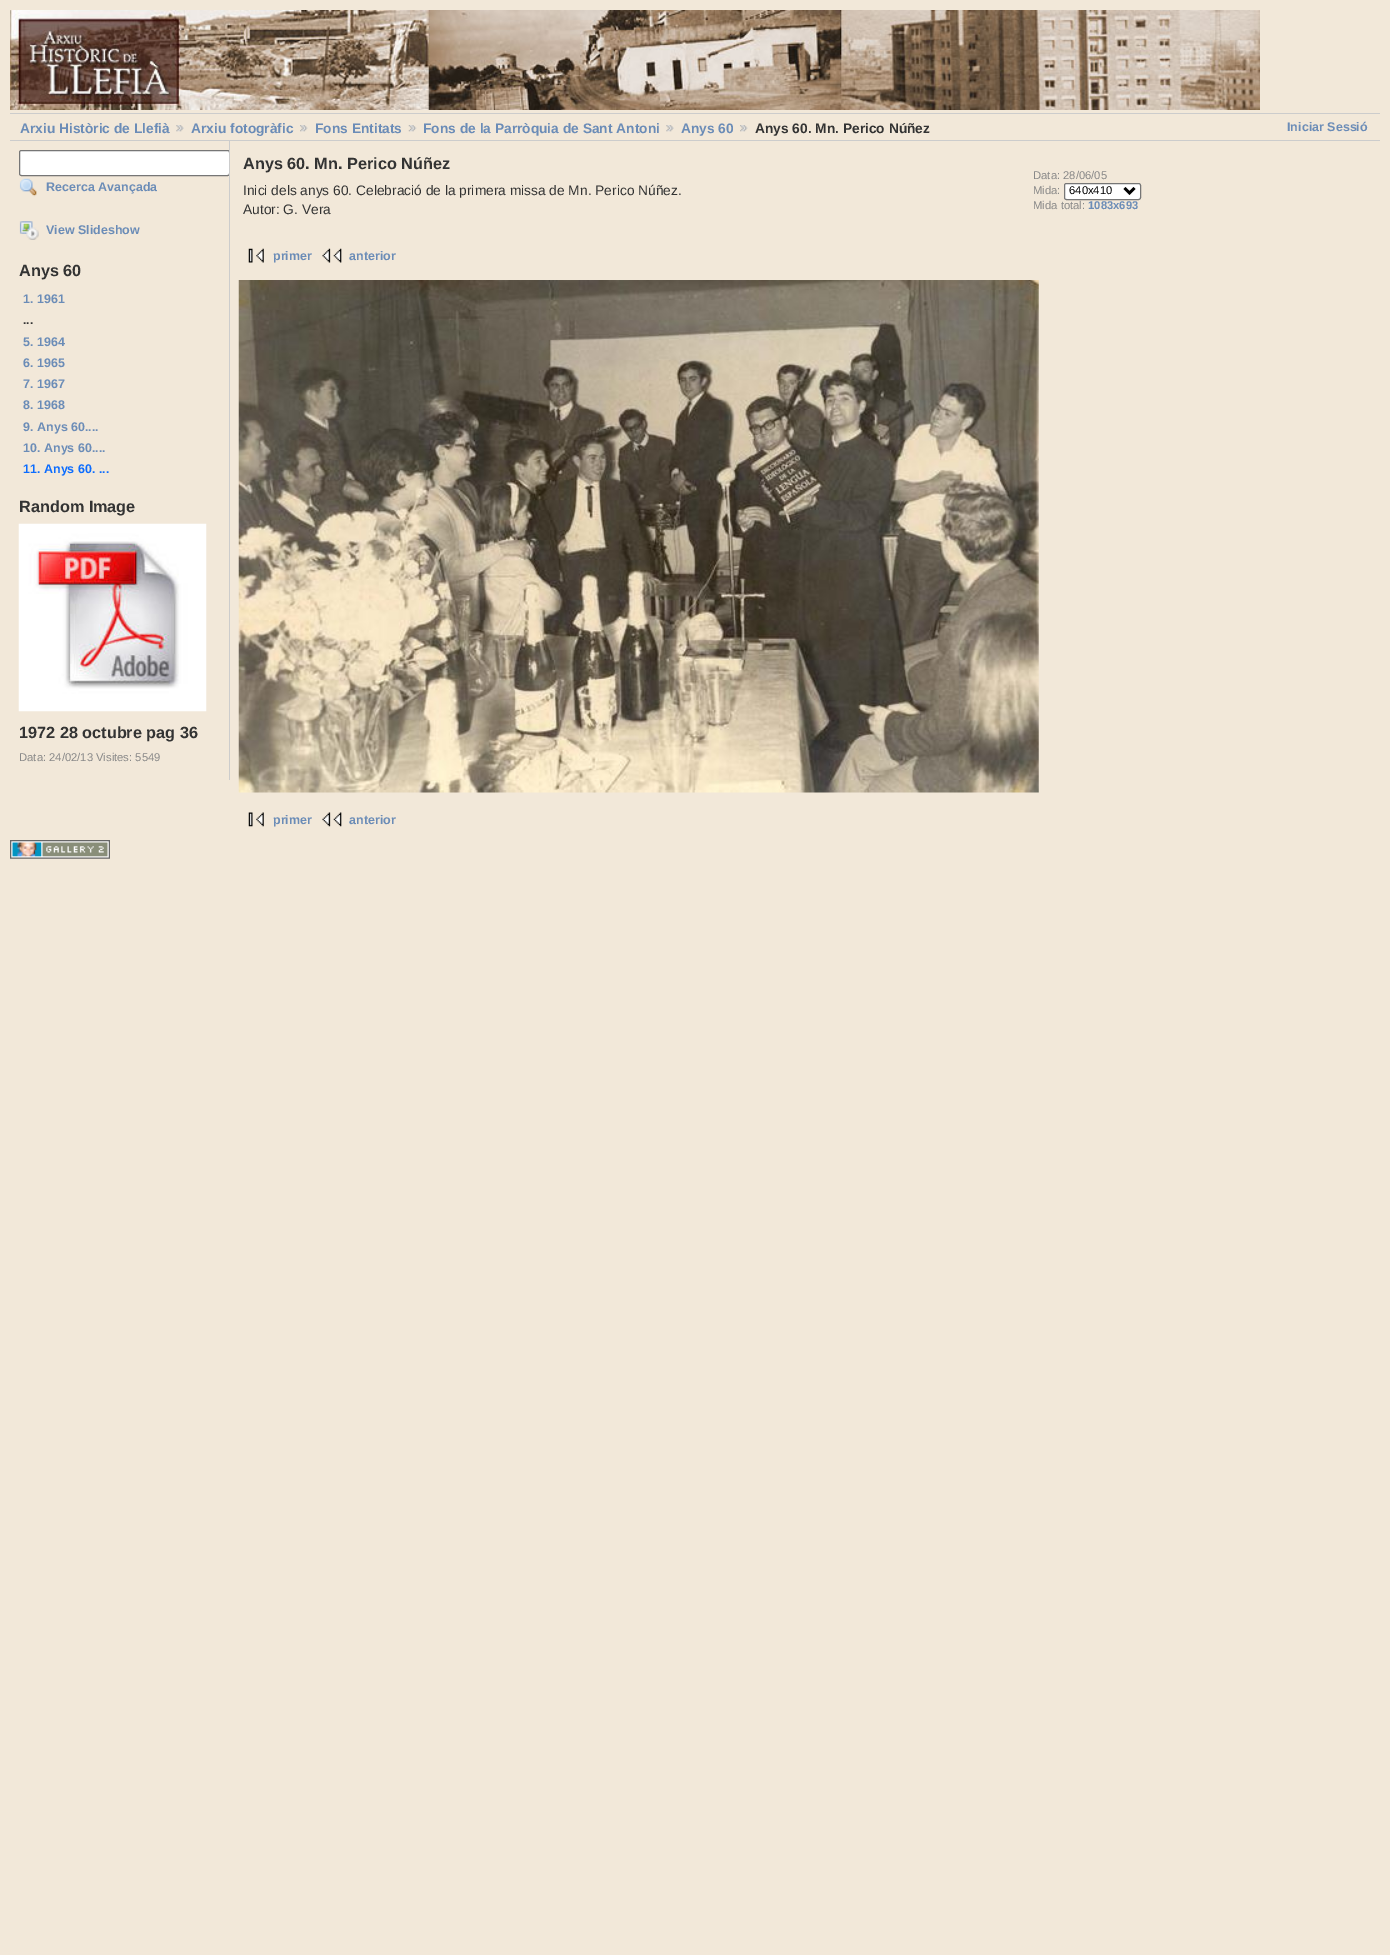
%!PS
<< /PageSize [1390 1955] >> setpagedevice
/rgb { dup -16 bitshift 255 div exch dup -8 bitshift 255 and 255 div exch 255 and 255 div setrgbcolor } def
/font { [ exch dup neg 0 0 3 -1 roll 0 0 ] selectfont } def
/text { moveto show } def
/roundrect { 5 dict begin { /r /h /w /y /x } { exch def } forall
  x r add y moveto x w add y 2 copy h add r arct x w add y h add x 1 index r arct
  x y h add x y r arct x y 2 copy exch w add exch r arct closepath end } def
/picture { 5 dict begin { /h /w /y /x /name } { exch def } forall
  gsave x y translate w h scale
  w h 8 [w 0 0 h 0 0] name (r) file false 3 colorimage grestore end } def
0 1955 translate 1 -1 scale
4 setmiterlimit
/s1 { /LiberationSans-Bold 13.75 font 16#6B8CB7 rgb } def
/s2 { /LiberationSans-Bold 13.75 font 16#333333 rgb } def
/s3 { /LiberationSans-Bold 12.5 font 16#6B8CB7 rgb } def
/s4 { /LiberationSans-Bold 16.25 font 16#333333 rgb } def
/s5 { /LiberationSans-Bold 12.5 font 16#333333 rgb } def
/s6 { /LiberationSans-Bold 12.5 font 16#0B6CFF rgb } def
/s7 { /LiberationSans-Regular 11.25 font 16#888888 rgb } def
/s8 { /LiberationSans-Regular 13.75 font 16#333333 rgb } def
/s9 { /LiberationSans-Regular 11.25 font 16#000000 rgb } def
/s10 { /LiberationSans-Bold 11.25 font 16#6B8CB7 rgb } def
16#F2E8D9 rgb
0 0 1390 1955 rectfill
(pic1.raw) 10 10 1250 100 picture
16#CCCCCC rgb
10 113 1370 1 rectfill
10 140 1370 1 rectfill
s1
(Arxiu Històric de Llefià) 20 133 text
(pic2.raw) 176 125 8 7 picture
(Arxiu fotogràfic) 191 133 text
(pic3.raw) 300 125 8 7 picture
(Fons Entitats) 315 133 text
(pic4.raw) 408 125 9 7 picture
(Fons de la Parròquia de Sant Antoni) 423 133 text
(pic2.raw) 666 125 8 7 picture
(Anys 60) 681 133 text
(pic3.raw) 740 125 8 7 picture
s2
(Anys 60. Mn. Perico Núñez) 755 133 text
s3
(Iniciar Sessió) 1287 131 text
16#CCCCCC rgb
229 141 1 639 rectfill
gsave
10 141 219 639 rectclip
16#FFFFFF rgb
19.5 150.5 210 25 2 roundrect gsave fill grestore
16#767676 rgb
stroke
grestore
(pic5.raw) 19 178 18 19 picture
s3
(Recerca Avançada) 46 191 text
(pic6.raw) 19 221 20 19 picture
(View Slideshow) 46 234 text
s4
(Anys 60) 19 276 text
s3
(1. 1961) 23 303 text
s5
(...) 23 324 text
s3
(5. 1964) 23 346 text
(6. 1965) 23 367 text
(7. 1967) 23 388 text
(8. 1968) 23 409 text
(9. Anys 60....) 23 431 text
(10. Anys 60....) 23 452 text
s6
(11. Anys 60. ...) 23 473 text
s4
(Random Image) 19 512 text
(pic7.raw) 18 523 189 189 picture
(1972 28 octubre pag 36) 19 738 text
s7
(Data: 24/02/13 Visites: 5549) 19 761 text
s4
(Anys 60. Mn. Perico Núñez) 243 169 text
s8
(Inici dels anys 60. Celebració de la primera missa de Mn. Perico Núñez.) 243 195 text
(Autor: G. Vera) 243 214 text
s7
(Data: 28/06/05) 1033 179 text
(Mida:) 1033 194 text
16#FFFFFF rgb
1064.5 183.5 76 16 2 roundrect gsave fill grestore
16#767676 rgb
stroke
16#000000 rgb
2.5 setlinewidth
1124.5 188 moveto 1129.5 193 lineto 1134.5 188 lineto stroke
(640x410) 1069 194 text
s7
(Mida total:) 1033 209 text
s10
(1083x693) 1088 209 text
(pic8.raw) 248 248 16 15 picture
s3
(primer) 273 260 text
(pic9.raw) 322 248 20 15 picture
(anterior) 349 260 text
(pic10.raw) 238 280 801 513 picture
(pic11.raw) 248 812 16 15 picture
(primer) 273 824 text
(pic12.raw) 322 812 20 15 picture
(anterior) 349 824 text
(pic13.raw) 10 840 100 19 picture
showpage
